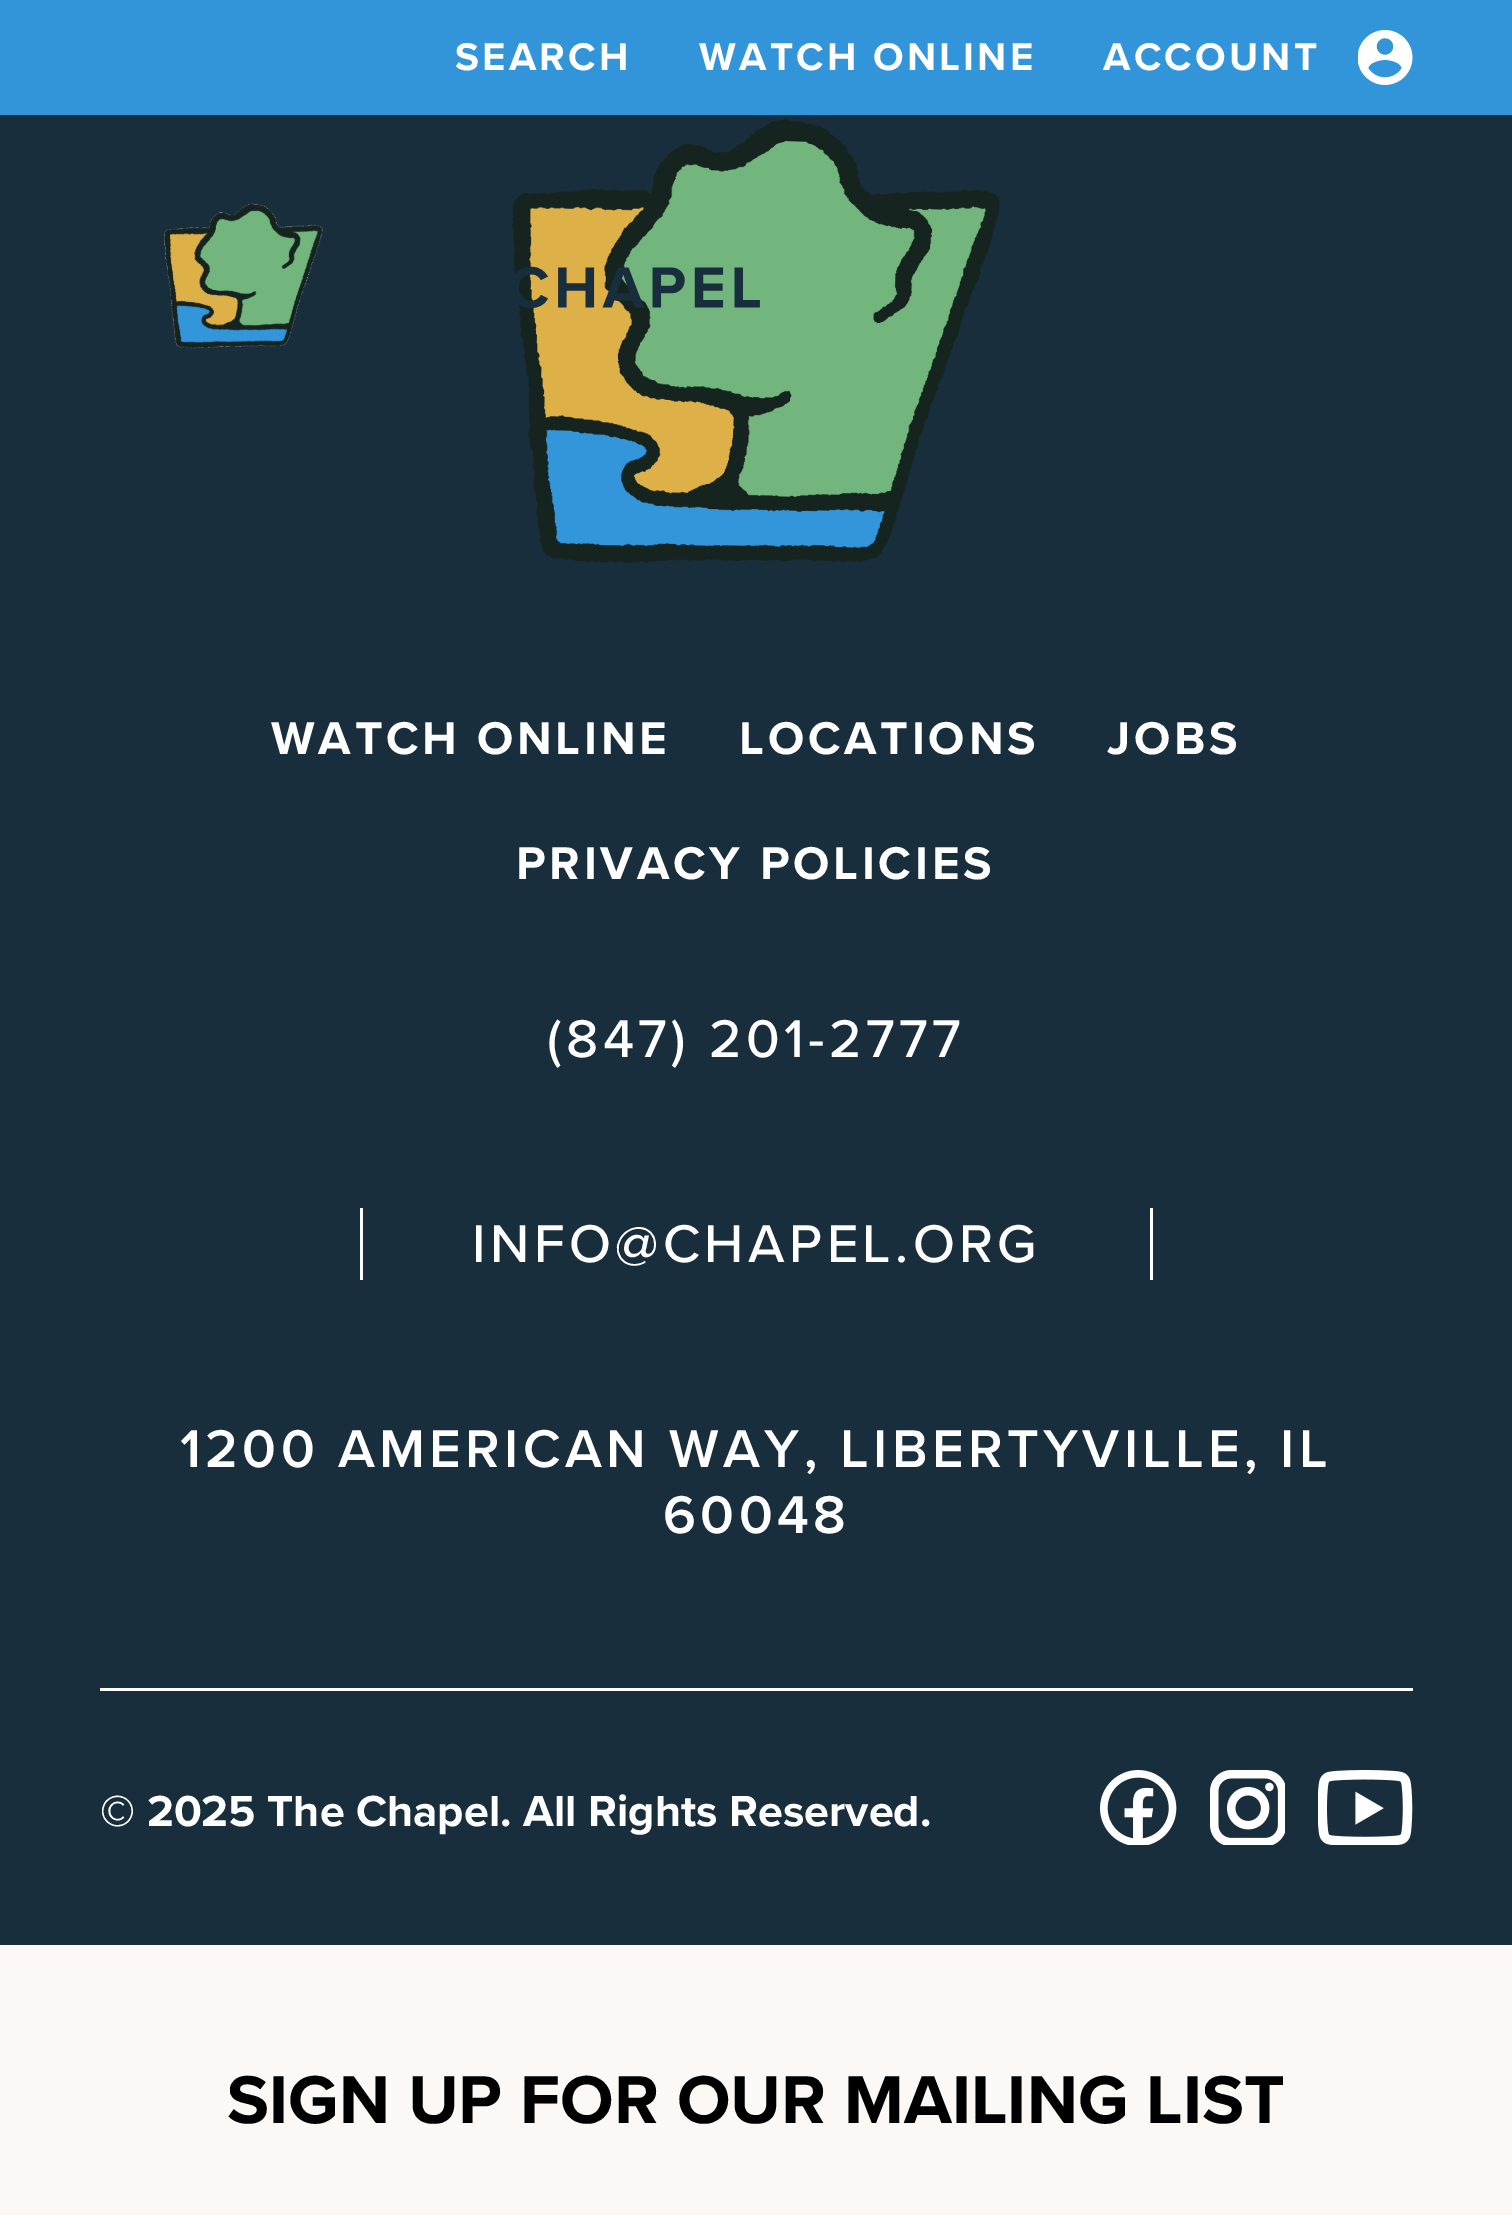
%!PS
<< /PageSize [1512 2215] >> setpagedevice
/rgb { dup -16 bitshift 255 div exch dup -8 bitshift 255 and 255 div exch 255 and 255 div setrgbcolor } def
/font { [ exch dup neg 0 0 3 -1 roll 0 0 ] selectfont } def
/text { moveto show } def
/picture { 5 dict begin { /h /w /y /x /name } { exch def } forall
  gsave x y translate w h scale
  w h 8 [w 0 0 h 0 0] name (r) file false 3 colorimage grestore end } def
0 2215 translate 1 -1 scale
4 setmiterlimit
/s1 { /ProximaNova-Bold 45 font 16#FFFFFF rgb } def
/s2 { /ProximaNova-Bold 70 font 16#000000 rgb } def
16#192E3C rgb
0 0 1512 2215 rectfill
16#3295DA rgb
0 0 1512 115 rectfill
/ProximaNova-Bold 40 font
16#FFFFFF rgb
455 70 moveto 3.25 0 (SEARCH) ashow
699 70 moveto 3.25 0 (WATCH ONLINE) ashow
1103 70 moveto 3.25 0 (ACCOUNT) ashow
(pic1.raw) 1358 30 55 55 picture
(pic3.raw) 512 119 488 445 picture
(pic2.raw) 164 203 596 146 picture
/ProximaNova-Bold 47.5 font
271 754 moveto 3.75 0 (WATCH ONLINE) ashow
739 754 moveto 3.75 0 (LOCATIONS) ashow
1107 754 moveto 3.75 0 (JOBS) ashow
516 879 moveto 3.75 0 (PRIVACY POLICIES) ashow
100 1688 1313 3 rectfill
/ProximaNova-Medium 55 font
547 1057 moveto 4.4 0 (\(847\) 201-2777) ashow
1150 1208 3 72 rectfill
360 1208 3 72 rectfill
472 1262 moveto 4.4 0 (INFO@CHAPEL.ORG) ashow
/ProximaNova-SemiBold 55 font
180 1467 moveto 4.4 0 (1200 AMERICAN WAY, LIBERTYVILLE, IL) ashow
663 1533 moveto 4.4 0 (60048) ashow
s1
(© 2025 The Chapel. All Rights Reserved.) 100 1826 text
(pic4.raw) 1100 1770 77 75 picture
(pic5.raw) 1210 1770 75 75 picture
(pic6.raw) 1318 1770 95 75 picture
16#FBF8F5 rgb
0 1945 1512 270 rectfill
s2
(SIGN UP FOR OUR MAILING LIST) 227 2123 text
showpage
